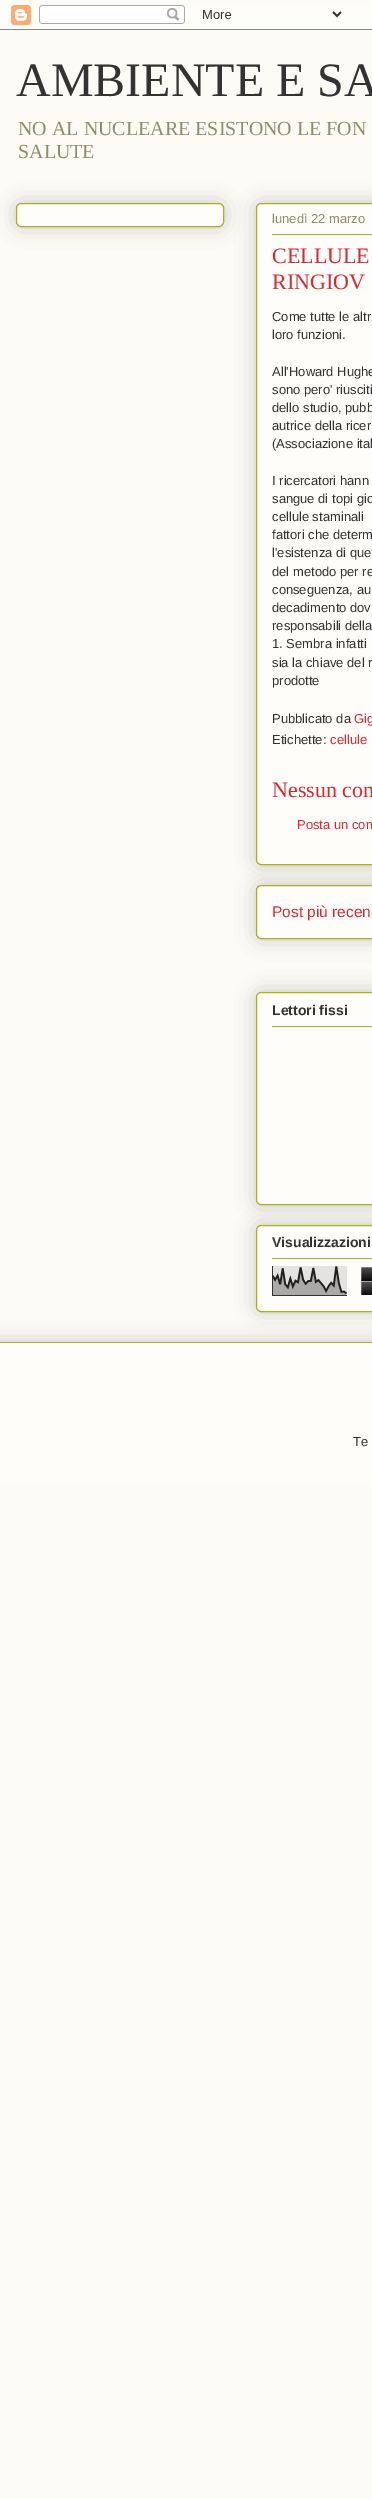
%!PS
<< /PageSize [372 2499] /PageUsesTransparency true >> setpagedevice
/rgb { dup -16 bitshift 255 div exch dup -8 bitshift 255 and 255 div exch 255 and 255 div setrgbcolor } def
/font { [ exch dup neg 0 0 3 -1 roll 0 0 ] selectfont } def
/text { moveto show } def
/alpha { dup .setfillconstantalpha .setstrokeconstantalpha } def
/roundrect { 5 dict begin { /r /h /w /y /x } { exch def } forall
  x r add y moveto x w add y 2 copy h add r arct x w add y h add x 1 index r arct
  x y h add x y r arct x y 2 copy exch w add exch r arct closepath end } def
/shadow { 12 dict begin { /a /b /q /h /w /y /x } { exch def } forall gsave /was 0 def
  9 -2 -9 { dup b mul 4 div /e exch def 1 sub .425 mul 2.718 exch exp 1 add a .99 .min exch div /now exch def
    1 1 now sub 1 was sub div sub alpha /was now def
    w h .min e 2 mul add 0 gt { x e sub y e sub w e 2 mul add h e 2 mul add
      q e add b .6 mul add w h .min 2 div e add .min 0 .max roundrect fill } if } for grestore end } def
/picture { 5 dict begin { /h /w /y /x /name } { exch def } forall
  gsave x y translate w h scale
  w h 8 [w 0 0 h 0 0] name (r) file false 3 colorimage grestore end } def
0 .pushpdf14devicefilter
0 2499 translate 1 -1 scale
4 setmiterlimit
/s1 { /LiberationSerif-Regular 48 font 16#333333 rgb } def
/s2 { /LiberationSerif-Regular 20 font 16#908D6A rgb } def
/s3 { /LiberationSans-Regular 13 font 16#908D6A rgb } def
/s4 { /LiberationSerif-Regular 22 font 16#D52A33 rgb } def
/s5 { /LiberationSans-Regular 13 font 16#333333 rgb } def
/s6 { /LiberationSans-Regular 13 font 16#D52A33 rgb } def
/s7 { /LiberationSans-Regular 15.5 font 16#D52A33 rgb } def
/s8 { /LiberationSans-Bold 14 font 16#333333 rgb } def
16#FCFBF5 rgb
0 0 372 2499 rectfill
(pic1.raw) 0 5 372 25 picture
s1
(AMBIENTE E SA) 16 96 text
s2
(NO AL NUCLEARE ESISTONO LE FON) 18 135 text
(SALUTE) 18 158 text
16#000000 rgb
16 203 208 24 5 10 0.2 shadow
16#FEFDFA rgb
16.5 203.5 207 23 4.5 roundrect gsave fill grestore
16#AAB123 rgb
stroke
16#000000 rgb
256 885 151 54 5 10 0.2 shadow
16#FEFDFA rgb
256.5 885.5 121 53 4.5 roundrect gsave fill grestore
16#AAB123 rgb
stroke
16#000000 rgb
256 203 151 662 5 10 0.2 shadow
16#FEFDFA rgb
256.5 203.5 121 661 4.5 roundrect gsave fill grestore
16#AAB123 rgb
stroke
s3
(lunedì 22 marzo) 272 223 text
16#AAB123 rgb
272 234 100 1 rectfill
s4
(CELLULE) 272 263 text
(RINGIOV) 272 289 text
s5
(Come tutte le altr) 272 321 text
(loro funzioni.) 272 339 text
(All'Howard Hughe) 272 376 text
(sono pero' riusciti) 272 394 text
(dello studio, pubb) 272 412 text
(autrice della ricer) 272 430 text
(\(Associazione ital) 272 448 text
(I ricercatori hann) 272 485 text
(sangue di topi gio) 272 503 text
(cellule staminali) 272 521 text
(fattori che determ) 272 539 text
(l'esistenza di que) 272 557 text
(del metodo per re) 272 576 text
(conseguenza, au) 272 594 text
(decadimento dov) 272 612 text
(responsabili della) 272 630 text
(1. Sembra infatti) 272 648 text
(sia la chiave del r) 272 667 text
(prodotte) 272 685 text
(Pubblicato da) 272 723 text
s6
(Gig) 354 723 text
s5
(Etichette:) 272 744 text
s6
(cellule) 330 744 text
s4
(Nessun com) 272 797 text
s6
(Posta un com) 297 829 text
s7
(Post più recen) 272 917 text
16#000000 rgb
256 992 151 213 5 10 0.2 shadow
16#FEFDFA rgb
256.5 992.5 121 212 4.5 roundrect gsave fill grestore
16#AAB123 rgb
stroke
s8
(Lettori fissi) 272 1015 text
16#AAB123 rgb
272 1026 100 1 rectfill
16#000000 rgb
256 1225 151 87 5 10 0.2 shadow
16#FEFDFA rgb
256.5 1225.5 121 86 4.5 roundrect gsave fill grestore
16#AAB123 rgb
stroke
s8
(Visualizzazioni) 272 1247 text
16#AAB123 rgb
272 1258 100 1 rectfill
(pic2.raw) 272 1266 75 30 picture
(pic3.raw) 361 1267 11 28 picture
16#FFFFFF rgb
360.5 1266.5 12 29 rectstroke
0.65 alpha
16#000000 rgb
361 1280 11 1 rectfill
16#FFFFFF rgb
361 1281 11 1 rectfill
gsave
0 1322 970 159 rectclip
1 alpha
16#000000 rgb
-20 1342 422 139 0 10 0.2 shadow
grestore
1 alpha
16#FEFDFA rgb
0 1343 372 138 rectfill
16#AAB123 rgb
0 1342 372 1 rectfill
s5
(Te) 353 1446 text
.poppdf14devicefilter showpage
